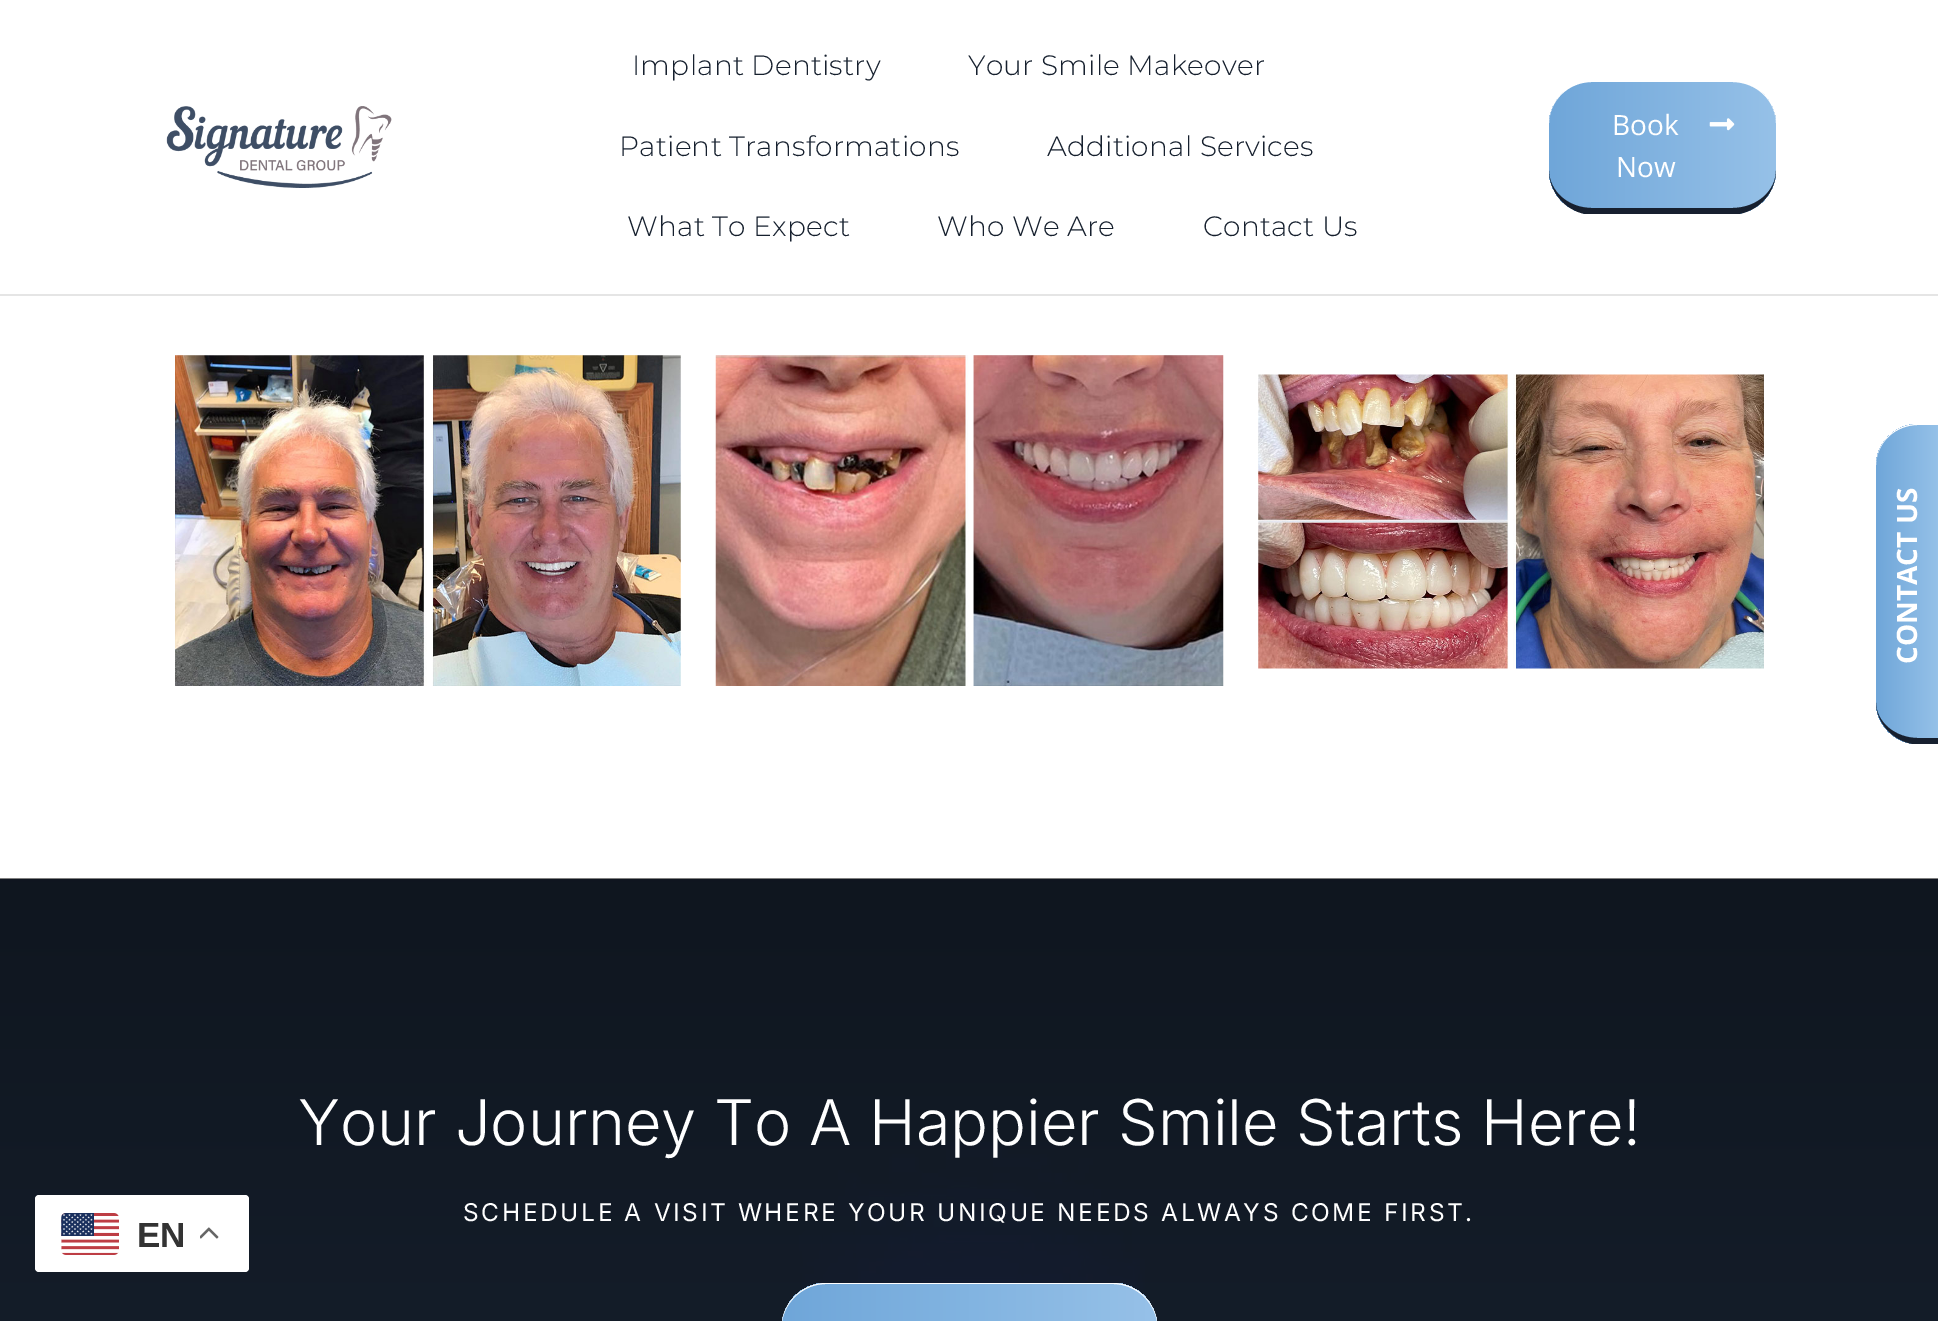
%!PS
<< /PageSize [1938 1321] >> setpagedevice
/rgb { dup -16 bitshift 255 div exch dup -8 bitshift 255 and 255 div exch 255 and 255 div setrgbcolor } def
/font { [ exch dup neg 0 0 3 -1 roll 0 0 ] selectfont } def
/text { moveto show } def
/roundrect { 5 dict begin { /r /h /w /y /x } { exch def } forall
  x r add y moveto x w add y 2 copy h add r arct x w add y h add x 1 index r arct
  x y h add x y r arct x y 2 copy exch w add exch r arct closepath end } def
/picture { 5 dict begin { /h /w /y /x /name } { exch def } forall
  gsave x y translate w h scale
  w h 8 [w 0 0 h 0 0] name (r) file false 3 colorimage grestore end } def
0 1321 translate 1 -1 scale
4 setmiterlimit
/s1 { /OpenSans-Regular 28 font 16#FFFFFF rgb } def
/s2 { /Inter-Light 63 font 16#FFFFFF rgb } def
/s3 { /LiberationSans-Bold 35 font 16#333333 rgb } def
16#FFFFFF rgb
0 0 1938 1321 rectfill
16#E5E5E5 rgb
0 294 1938 2 rectfill
(pic1.raw) 166 106 226 82 picture
/Montserrat-Light 28 font
16#16202E rgb
632 75 moveto 0.2 0 (Implant Dentistry) ashow
968 75 moveto 0.2 0 (Your Smile Makeover) ashow
619 156 moveto 0.2 0 (Patient Transformations) ashow
1047 156 moveto 0.2 0 (Additional Services) ashow
627 236 moveto 0.2 0 (What To Expect) ashow
937 236 moveto 0.2 0 (Who We Are) ashow
1203 236 moveto 0.2 0 (Contact Us) ashow
gsave 1549 81 227 133 44 roundrect clip newpath
<< /ShadingType 2 /ColorSpace /DeviceRGB /Coords [1549 145 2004 145] /Extend [true true] /Function << /FunctionType 3 /Domain [0 1] /Functions [<< /FunctionType 2 /Domain [0 1] /C0 [0.435 0.651 0.851] /C1 [0.588 0.757 0.91] /N 1 >> << /FunctionType 2 /Domain [0 1] /C0 [0.588 0.757 0.91] /C1 [0.333 0.522 0.698] /N 1 >>] /Bounds [0.5] /Encode [0 1 0 1] >> >> shfill grestore
16#FFFFFF rgb
1592 82 moveto 1732 82 lineto 1757 82 1776 101 1776 124 curveto 1776 102 1760 84 1739 80 curveto 1585 80 lineto 1565 84 1549 102 1549 124 curveto 1549 101 1568 82 1592 82 curveto closepath fill
16#17202F rgb
1739 214 moveto 1760 210 1776 192 1776 170 curveto 1776 191 1757 208 1732 208 curveto 1592 208 lineto 1568 208 1549 191 1549 170 curveto 1549 192 1565 210 1585 214 curveto closepath fill
s1
(Book) 1612 135 text
(Now) 1616 177 text
(pic2.raw) 1709 118 26 13 picture
gsave 1918 424 moveto 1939 424 lineto 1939 744 lineto 1918 744 lineto 1895 744 1876 725 1876 702 curveto 1876 466 lineto 1876 443 1895 424 1918 424 curveto closepath clip newpath
<< /ShadingType 2 /ColorSpace /DeviceRGB /Coords [1876 582 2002 582] /Extend [true true] /Function << /FunctionType 3 /Domain [0 1] /Functions [<< /FunctionType 2 /Domain [0 1] /C0 [0.435 0.651 0.851] /C1 [0.588 0.757 0.91] /N 1 >> << /FunctionType 2 /Domain [0 1] /C0 [0.588 0.757 0.91] /C1 [0.333 0.522 0.698] /N 1 >>] /Bounds [0.5] /Encode [0 1 0 1] >> >> shfill grestore
1918 424 moveto 1895 424 1876 442 1876 466 curveto 1876 443 1895 425 1918 425 curveto 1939 425 lineto 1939 424 lineto closepath fill
16#17202F rgb
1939 744 moveto 1913 744 lineto 1893 741 1876 723 1876 702 curveto 1876 722 1895 738 1918 738 curveto 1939 738 lineto closepath fill
/OpenSans-Bold 28 font
16#FFFFFF rgb
gsave 1917 664 translate -90 rotate 0 0 moveto (CONTACT US) show grestore
(pic3.raw) 175 355 506 331 picture
(pic4.raw) 715 355 509 331 picture
(pic5.raw) 1258 374 506 295 picture
(pic6.raw) 0 878 1938 443 picture
s2
(Your Journey To A Happier Smile Starts Here!) 298 1145 text
/Inter-Regular 24.5 font
463 1221 moveto 2.62 0 (SCHEDULE A VISIT WHERE YOUR UNIQUE NEEDS ALWAYS COME FIRST.) ashow
gsave 782 1283 375 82 44 roundrect clip newpath
<< /ShadingType 2 /ColorSpace /DeviceRGB /Coords [782 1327 1531 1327] /Extend [true true] /Function << /FunctionType 3 /Domain [0 1] /Functions [<< /FunctionType 2 /Domain [0 1] /C0 [0.435 0.651 0.851] /C1 [0.588 0.757 0.91] /N 1 >> << /FunctionType 2 /Domain [0 1] /C0 [0.588 0.757 0.91] /C1 [0.333 0.522 0.698] /N 1 >>] /Bounds [0.5] /Encode [0 1 0 1] >> >> shfill grestore
826 1283 moveto 1113 1283 lineto 1135 1283 1154 1300 1157 1321 curveto 1157 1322 lineto 1154 1301 1135 1284 1113 1284 curveto 826 1284 lineto 804 1284 785 1301 782 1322 curveto 782 1321 lineto 785 1300 804 1283 826 1283 curveto closepath fill
35 1195 214 77 4 roundrect fill
(pic7.raw) 61 1213 58 42 picture
s3
(EN) 137 1247 text
(pic8.raw) 200 1227 19 12 picture
showpage
